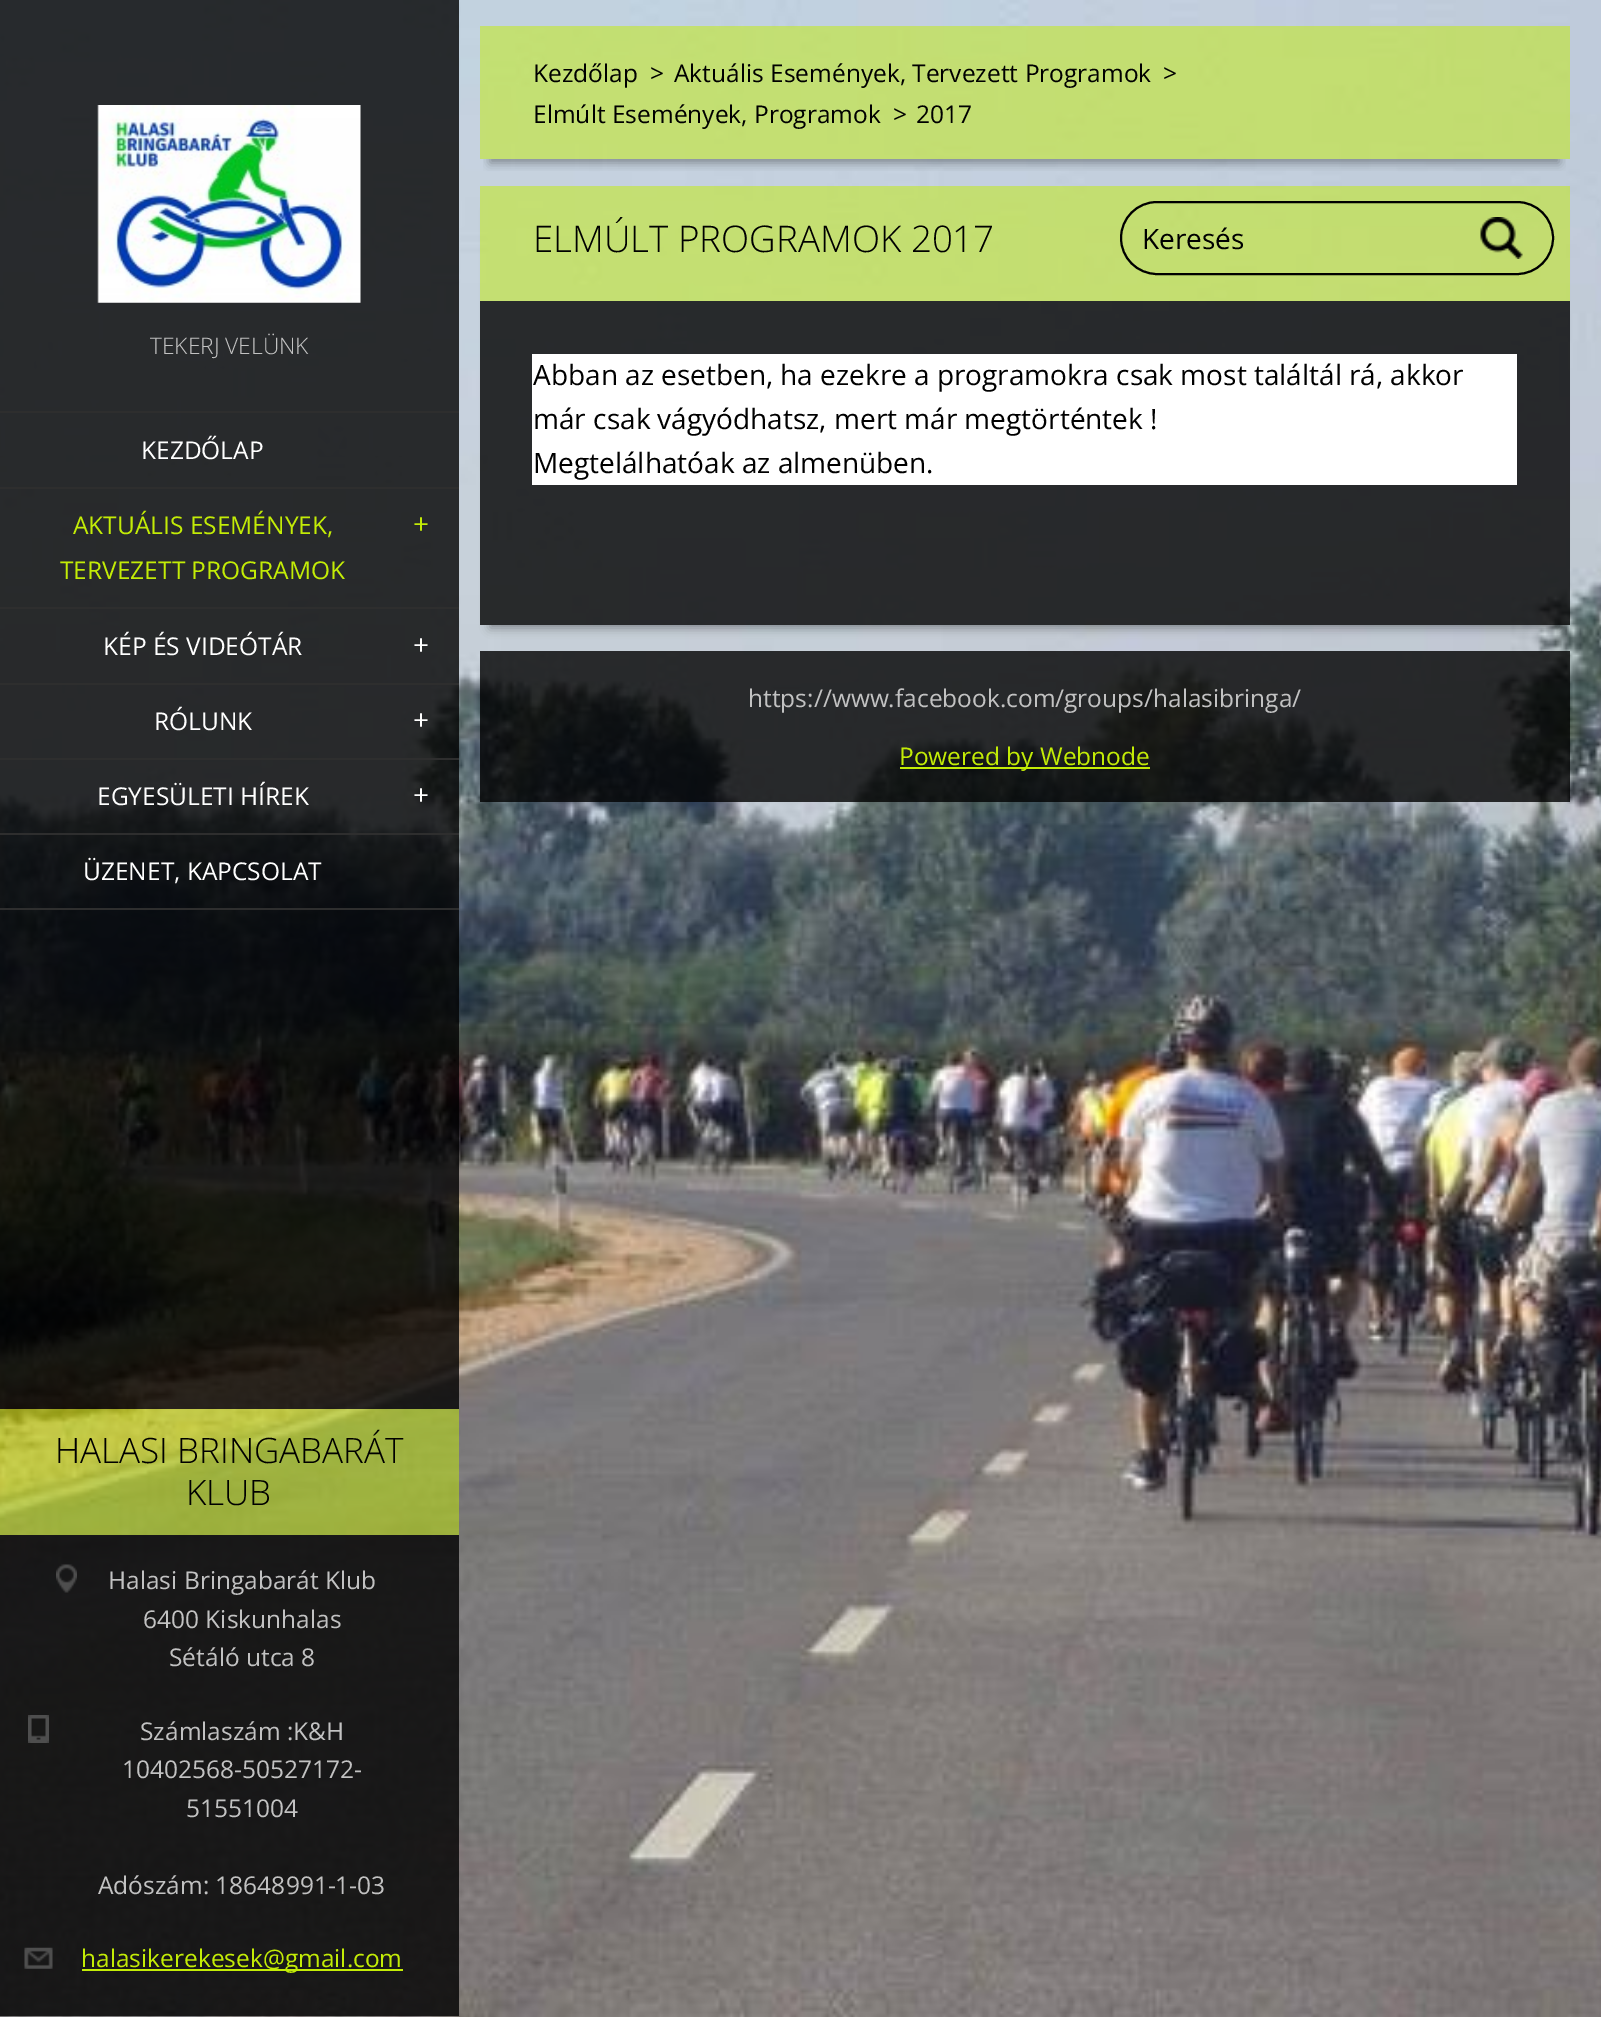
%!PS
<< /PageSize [1601 2017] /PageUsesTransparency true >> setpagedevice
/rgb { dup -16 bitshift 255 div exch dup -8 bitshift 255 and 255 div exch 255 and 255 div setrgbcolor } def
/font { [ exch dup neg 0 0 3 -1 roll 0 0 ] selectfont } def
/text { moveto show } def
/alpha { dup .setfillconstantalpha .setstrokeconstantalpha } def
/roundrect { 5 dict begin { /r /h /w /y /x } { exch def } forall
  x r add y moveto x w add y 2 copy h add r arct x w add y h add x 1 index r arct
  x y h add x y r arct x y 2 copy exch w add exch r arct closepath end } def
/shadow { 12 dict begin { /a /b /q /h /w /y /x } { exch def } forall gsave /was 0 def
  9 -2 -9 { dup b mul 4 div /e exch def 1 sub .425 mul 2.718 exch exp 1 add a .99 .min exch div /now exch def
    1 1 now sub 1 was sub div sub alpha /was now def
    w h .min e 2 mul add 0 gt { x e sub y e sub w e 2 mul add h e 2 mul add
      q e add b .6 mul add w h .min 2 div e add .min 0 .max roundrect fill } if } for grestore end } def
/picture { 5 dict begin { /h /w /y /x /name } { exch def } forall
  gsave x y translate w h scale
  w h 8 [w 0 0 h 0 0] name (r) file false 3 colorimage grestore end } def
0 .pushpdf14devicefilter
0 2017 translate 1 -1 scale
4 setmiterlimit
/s1 { /OpenSans-Light 22.75 font 16#C2C2C2 rgb } def
/s2 { /OpenSans-Regular 24.5 font 16#FFFFFF rgb } def
/s3 { /OpenSans-Regular 24.5 font 16#C3EC06 rgb } def
/s4 { /OpenSans-Regular 28 font 16#C3EC06 rgb } def
/s5 { /OpenSans-Regular 28 font 16#FFFFFF rgb } def
/s6 { /OpenSans-Light 35 font 16#000000 rgb } def
/s7 { /OpenSans-Regular 24.5 font 16#C2C2C2 rgb } def
/s8 { /OpenSans-Regular 24.5 font 16#000000 rgb } def
/s9 { /OpenSans-Light 36.75 font 16#000000 rgb } def
/s10 { /OpenSans-Regular 28 font 16#000000 rgb } def
16#FFFFFF rgb
0 0 1601 2017 rectfill
(pic1.raw) 0 0 1601 2017 picture
0.8 alpha
16#000000 rgb
0 0 459 324 rectfill
1 alpha
(pic2.raw) 97 105 264 198 picture
0.8 alpha
0 324 459 87 rectfill
1 alpha
s1
(TEKERJ VELÜNK) 150 354 text
0.8 alpha
16#000000 rgb
0 413 459 495 rectfill
1 alpha
16#2E2E2E rgb
0 411 459 2 rectfill
0 487 459 2 rectfill
s2
(KEZDŐLAP) 141 459 text
16#2E2E2E rgb
0 607 459 2 rectfill
s3
(AKTUÁLIS ESEMÉNYEK,) 73 534 text
(TERVEZETT PROGRAMOK) 60 579 text
s4
(+) 413 534 text
16#2E2E2E rgb
0 683 459 2 rectfill
s2
(KÉP ÉS VIDEÓTÁR) 103 655 text
s5
(+) 413 655 text
16#2E2E2E rgb
0 758 459 2 rectfill
s2
(RÓLUNK) 154 730 text
s5
(+) 413 730 text
16#2E2E2E rgb
0 833 459 2 rectfill
s2
(EGYESÜLETI HÍREK) 97 805 text
s5
(+) 413 805 text
16#2E2E2E rgb
0 908 459 2 rectfill
s2
(ÜZENET, KAPCSOLAT) 83 880 text
0.8 alpha
16#000000 rgb
0 910 459 499 rectfill
0.5 alpha
16#C3EC06 rgb
0 1409 459 126 rectfill
1 alpha
s6
(HALASI BRINGABARÁT) 55 1463 text
(KLUB) 186 1505 text
0.8 alpha
0 1535 459 481 rectfill
1 alpha
(pic3.raw) 56 1564 21 29 picture
s7
(Halasi Bringabarát Klub) 108 1589 text
(6400 Kiskunhalas) 143 1628 text
(Sétáló utca 8) 169 1666 text
(pic4.raw) 28 1715 21 28 picture
(Számlaszám :K&H) 140 1740 text
(10402568-50527172-) 122 1778 text
(51551004) 186 1817 text
(Adószám: 18648991-1-03) 98 1894 text
(pic5.raw) 24 1947 29 22 picture
16#C3EC06 rgb
82 1969 321 2 rectfill
(halasikerekesek@gmail.com) 81 1967 text
gsave
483 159 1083 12 rectclip
16#000000 rgb
490 51 1069 112 0 5 0.35 shadow
grestore
0.5 alpha
480 26 1090 133 rectfill
1 alpha
s8
(Kezdőlap) 533 82 text
(>) 650 82 text
(Aktuális Események, Tervezett Programok) 674 82 text
(>) 1163 82 text
(Elmúlt Események, Programok) 533 123 text
(>) 893 123 text
(2017) 916 123 text
gsave
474 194 moveto 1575 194 lineto 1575 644 lineto 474 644 lineto closepath 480 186 moveto 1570 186 lineto 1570 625 lineto 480 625 lineto closepath eoclip newpath
490 210 1069 418 0 5 0.35 shadow
grestore
0.5 alpha
16#C3EC06 rgb
480 186 1090 115 rectfill
1 alpha
s9
(ELMÚLT PROGRAMOK 2017) 533 252 text
2 setlinewidth
1121 202 432 72 36 roundrect stroke
s10
(Keresés) 1142 249 text
(pic6.raw) 1480 217 43 42 picture
0.8 alpha
480 301 1090 271 rectfill
1 alpha
16#FFFFFF rgb
532 354 985 131 rectfill
s10
(Abban az esetben, ha ezekre a programokra csak most találtál rá, akkor) 533 385 text
(már csak vágyódhatsz, mert már megtörténtek !) 533 429 text
(Megtelálhatóak az almenüben.) 533 473 text
0.8 alpha
480 572 1090 53 rectfill
480 651 1090 151 rectfill
1 alpha
s7
(https://www.facebook.com/groups/halasibringa/) 748 707 text
16#C3EC06 rgb
900 767 250 2 rectfill
(Powered by Webnode) 899 765 text
.poppdf14devicefilter showpage
